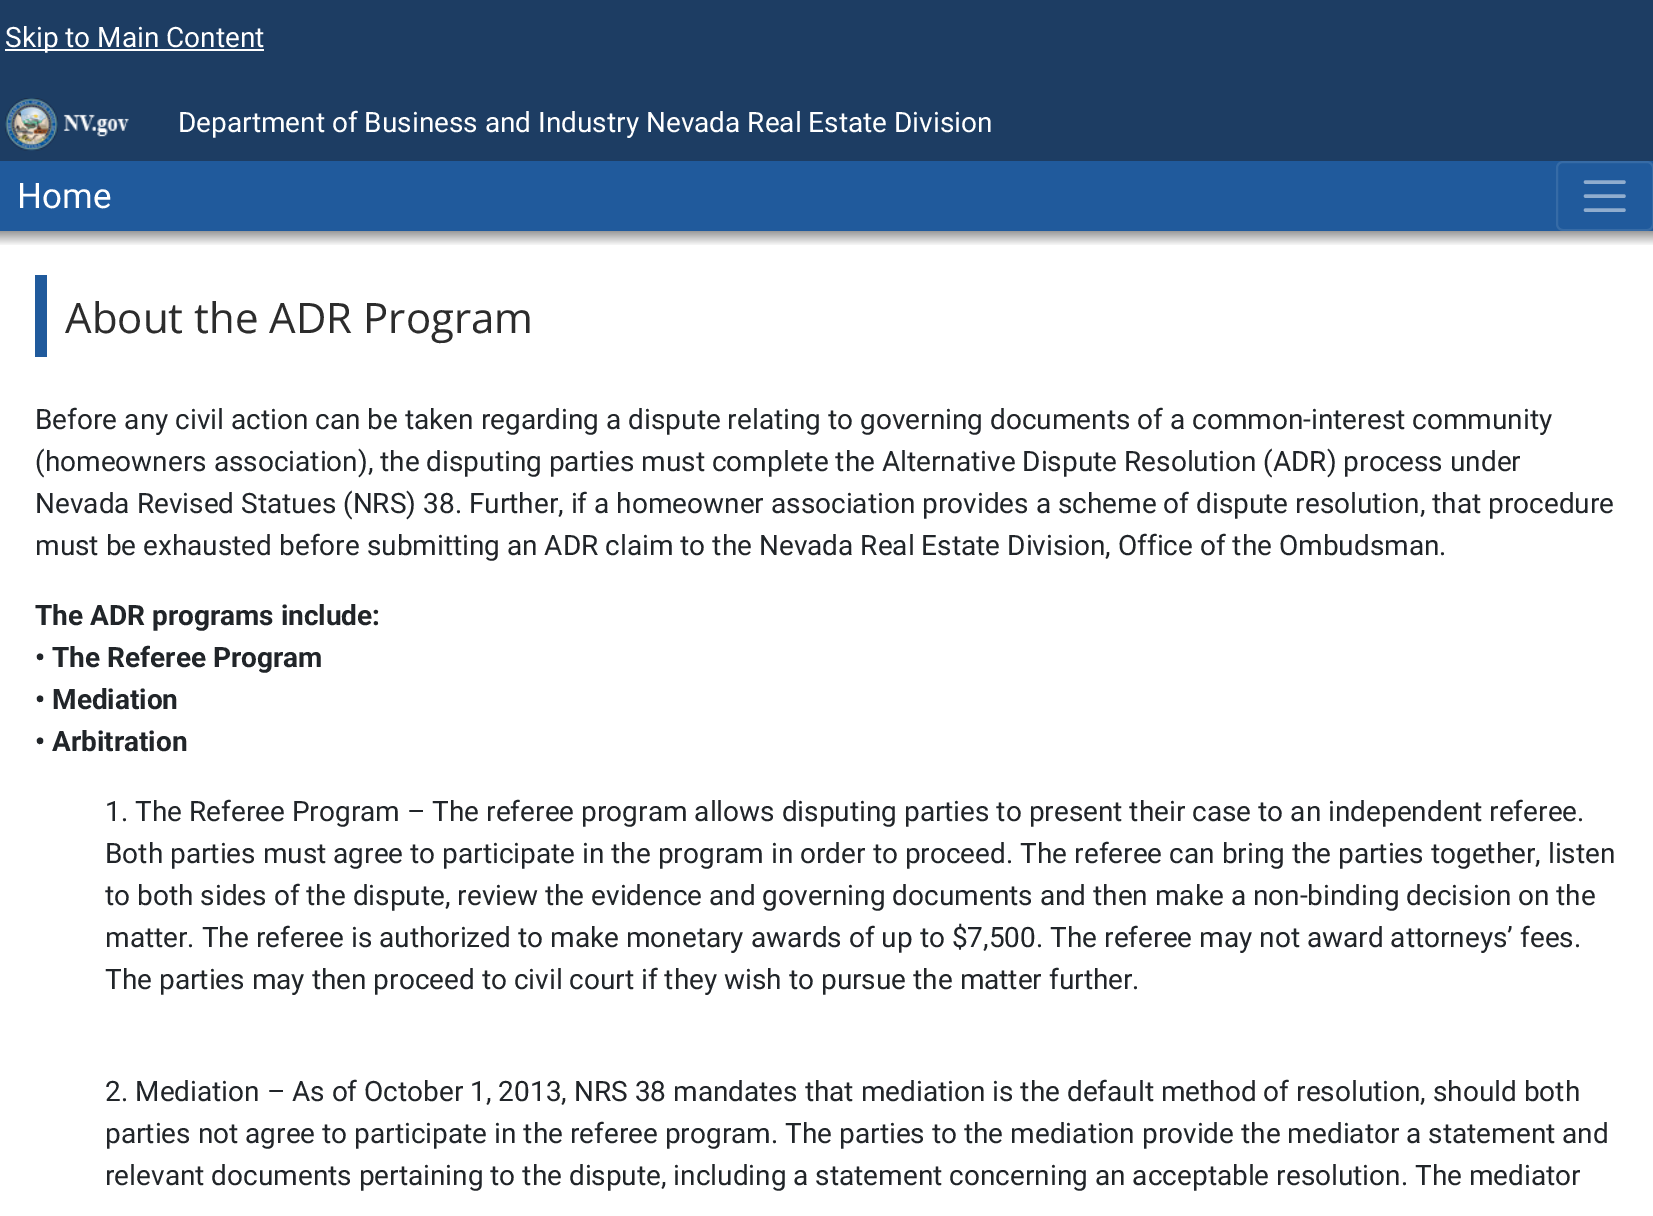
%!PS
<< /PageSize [1653 1216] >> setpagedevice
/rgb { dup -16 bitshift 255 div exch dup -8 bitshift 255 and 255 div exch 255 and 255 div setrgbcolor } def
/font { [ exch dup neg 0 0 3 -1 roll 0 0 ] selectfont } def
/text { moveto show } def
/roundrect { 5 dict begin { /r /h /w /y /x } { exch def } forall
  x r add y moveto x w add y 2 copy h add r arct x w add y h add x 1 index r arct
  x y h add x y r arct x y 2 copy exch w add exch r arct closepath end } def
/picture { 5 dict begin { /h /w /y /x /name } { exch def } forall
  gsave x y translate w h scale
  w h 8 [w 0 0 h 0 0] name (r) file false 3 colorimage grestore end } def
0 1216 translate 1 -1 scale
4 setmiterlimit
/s1 { /Roboto-Regular 28 font 16#FFFFFF rgb } def
/s2 { /Roboto-Regular 35 font 16#FFFFFF rgb } def
/s3 { /OpenSans-Regular 42 font 16#2C2C2C rgb } def
/s4 { /Roboto-Regular 28 font 16#212529 rgb } def
/s5 { /Roboto-Bold 28 font 16#212529 rgb } def
16#FFFFFF rgb
0 0 1653 1216 rectfill
gsave 0 0 moveto 1653 0 lineto 1653 161 lineto 0 161 lineto closepath clip newpath
<< /ShadingType 2 /ColorSpace /DeviceRGB /Coords [827 0 827 1216] /Extend [true true] /Function << /FunctionType 3 /Domain [0 1] /Functions [<< /FunctionType 2 /Domain [0 1] /C0 [0.114 0.239 0.388] /C1 [0.114 0.239 0.388] /N 1 >> << /FunctionType 2 /Domain [0 1] /C0 [0.114 0.239 0.388] /C1 [0.125 0.353 0.612] /N 1 >> << /FunctionType 2 /Domain [0 1] /C0 [0.125 0.353 0.612] /C1 [0.125 0.353 0.612] /N 1 >>] /Bounds [0.2 0.4] /Encode [0 1 0 1 0 1] >> >> shfill grestore
5 49 259 2 rectfill
s1
(Skip to Main Content) 5 47 text
(pic1.raw) 5 98 124 53 picture
(Department of Business and Industry Nevada Real Estate Division) 178 132 text
16#205A9C rgb
0 161 1653 70 rectfill
s2
(Home) 17 208 text
16#366BA6 rgb
2 setlinewidth
1557 162 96 68 6 roundrect stroke
16#90ADCE rgb
3.5 setlinewidth
1 setlinecap
1585.5 182 moveto 1624 182 lineto 1585.5 196 moveto 1624 196 lineto 1585.5 210 moveto 1624 210 lineto stroke
gsave 0 231 moveto 1653 231 lineto 1653 246 lineto 0 246 lineto closepath clip newpath
<< /ShadingType 2 /ColorSpace /DeviceRGB /Coords [827 231 827 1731] /Extend [true true] /Function << /FunctionType 3 /Domain [0 1] /Functions [<< /FunctionType 2 /Domain [0 1] /C0 [0.6 0.6 0.6] /C1 [1 1 1] /N 1 >> << /FunctionType 2 /Domain [0 1] /C0 [1 1 1] /C1 [1 1 1] /N 1 >>] /Bounds [0.01] /Encode [0 1 0 1] >> >> shfill grestore
16#205A9C rgb
35 275 12 82 rectfill
s3
(About the ADR Program) 65 333 text
s4
(Before any civil action can be taken regarding a dispute relating to governing documents of a common-interest community) 35 429 text
(\(homeowners association\), the disputing parties must complete the Alternative Dispute Resolution \(ADR\) process under) 35 471 text
(Nevada Revised Statues \(NRS\) 38. Further, if a homeowner association provides a scheme of dispute resolution, that procedure) 35 513 text
(must be exhausted before submitting an ADR claim to the Nevada Real Estate Division, Office of the Ombudsman.) 35 555 text
s5
(The ADR programs include:) 35 625 text
(• The Referee Program) 35 667 text
(• Mediation) 35 709 text
(• Arbitration) 35 751 text
s4
(1. The Referee Program – The referee program allows disputing parties to present their case to an independent referee.) 105 821 text
(Both parties must agree to participate in the program in order to proceed. The referee can bring the parties together, listen) 105 863 text
(to both sides of the dispute, review the evidence and governing documents and then make a non-binding decision on the) 105 905 text
(matter. The referee is authorized to make monetary awards of up to $7,500. The referee may not award attorneys’ fees.) 105 947 text
(The parties may then proceed to civil court if they wish to pursue the matter further.) 105 989 text
(2. Mediation – As of October 1, 2013, NRS 38 mandates that mediation is the default method of resolution, should both) 105 1101 text
(parties not agree to participate in the referee program. The parties to the mediation provide the mediator a statement and) 105 1143 text
(relevant documents pertaining to the dispute, including a statement concerning an acceptable resolution. The mediator) 105 1185 text
showpage
